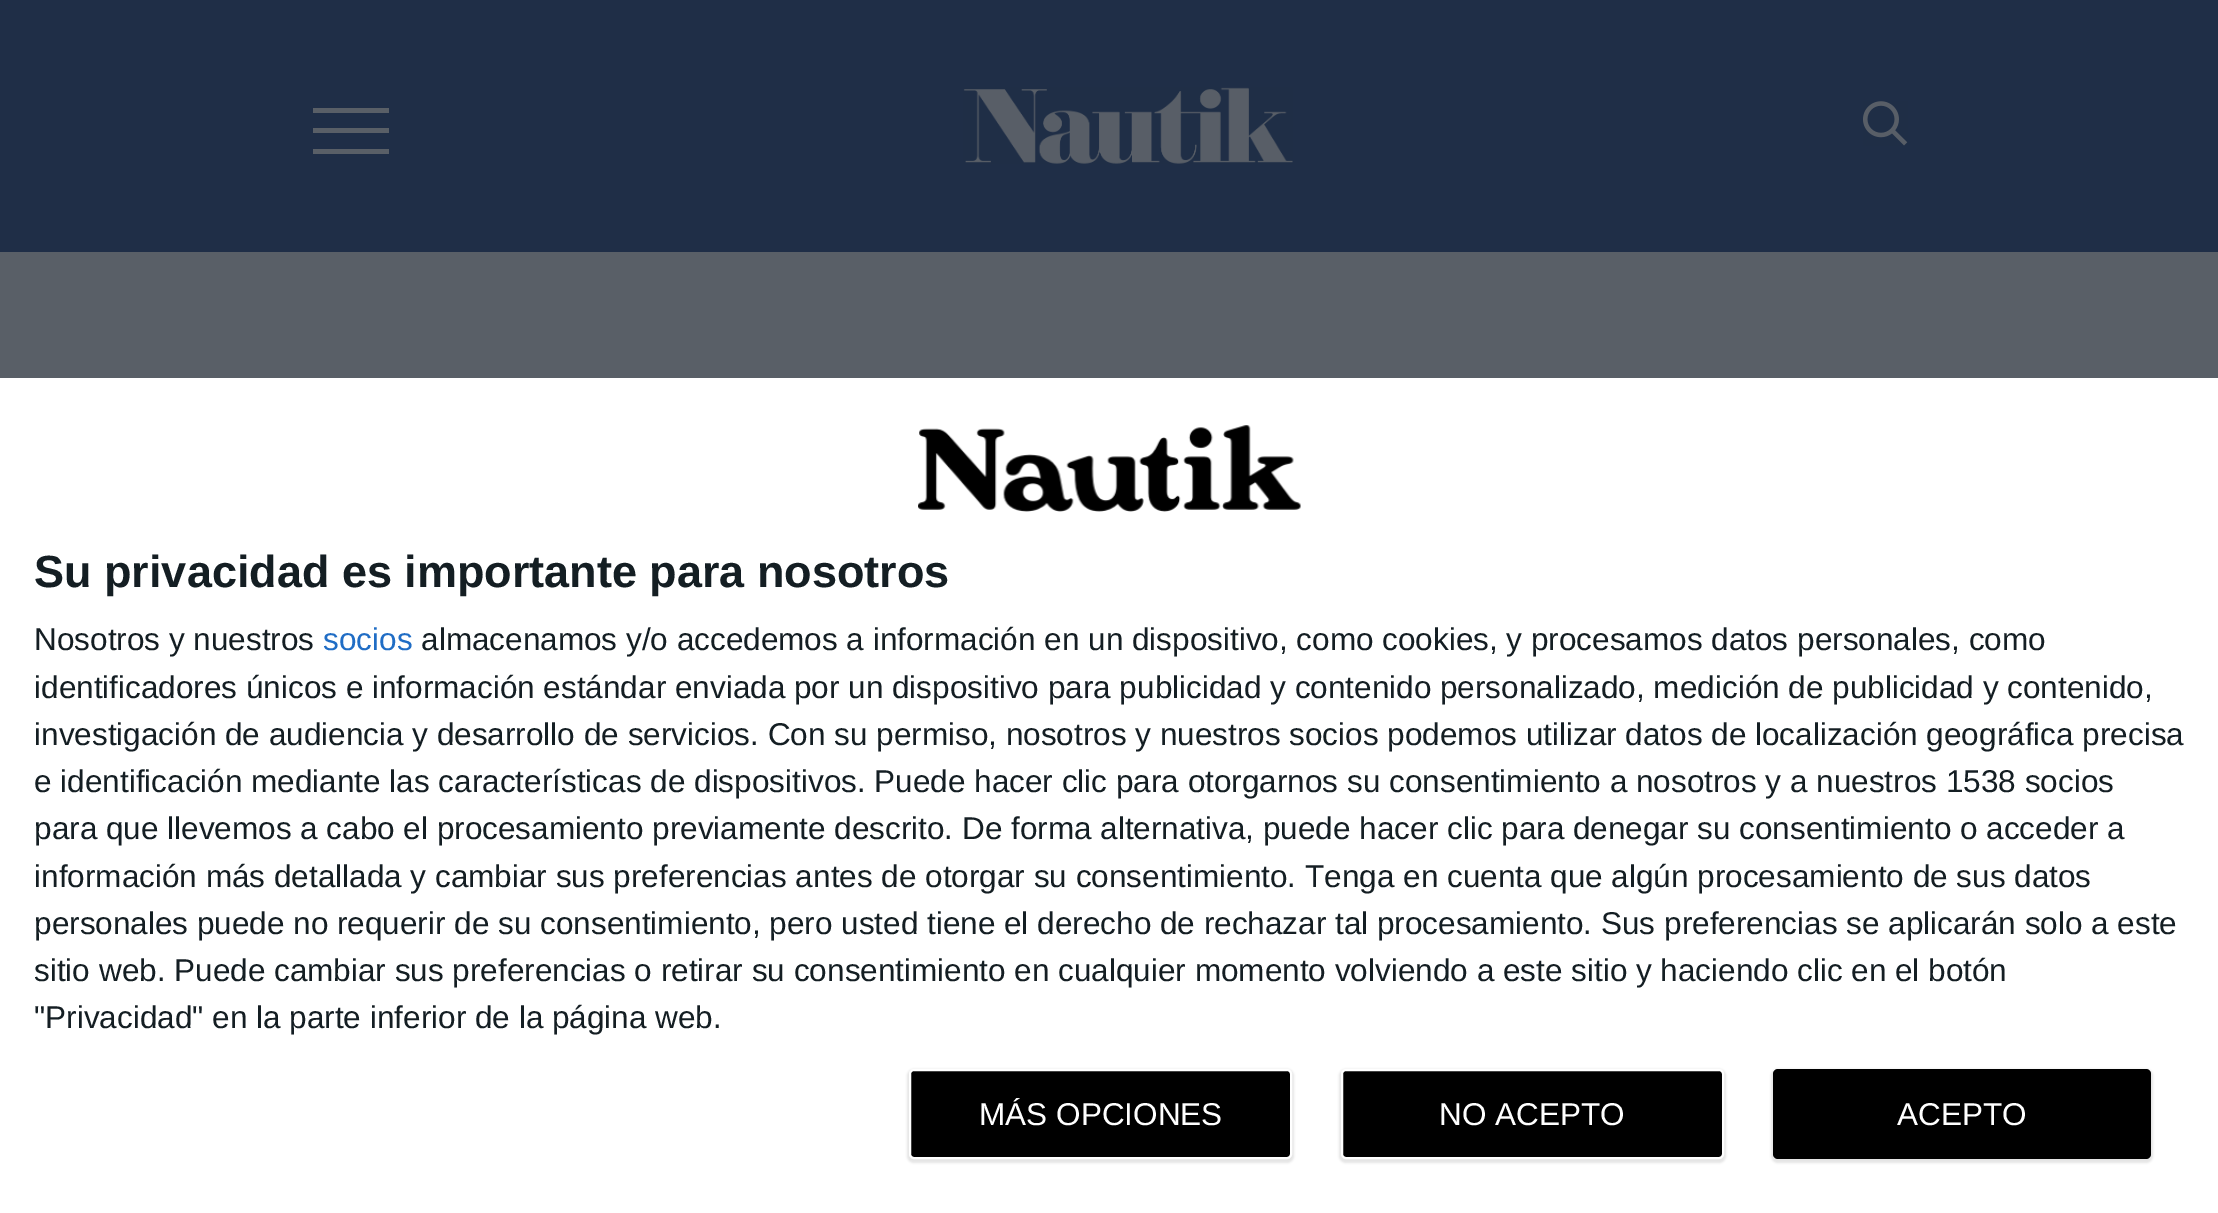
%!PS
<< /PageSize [2218 1213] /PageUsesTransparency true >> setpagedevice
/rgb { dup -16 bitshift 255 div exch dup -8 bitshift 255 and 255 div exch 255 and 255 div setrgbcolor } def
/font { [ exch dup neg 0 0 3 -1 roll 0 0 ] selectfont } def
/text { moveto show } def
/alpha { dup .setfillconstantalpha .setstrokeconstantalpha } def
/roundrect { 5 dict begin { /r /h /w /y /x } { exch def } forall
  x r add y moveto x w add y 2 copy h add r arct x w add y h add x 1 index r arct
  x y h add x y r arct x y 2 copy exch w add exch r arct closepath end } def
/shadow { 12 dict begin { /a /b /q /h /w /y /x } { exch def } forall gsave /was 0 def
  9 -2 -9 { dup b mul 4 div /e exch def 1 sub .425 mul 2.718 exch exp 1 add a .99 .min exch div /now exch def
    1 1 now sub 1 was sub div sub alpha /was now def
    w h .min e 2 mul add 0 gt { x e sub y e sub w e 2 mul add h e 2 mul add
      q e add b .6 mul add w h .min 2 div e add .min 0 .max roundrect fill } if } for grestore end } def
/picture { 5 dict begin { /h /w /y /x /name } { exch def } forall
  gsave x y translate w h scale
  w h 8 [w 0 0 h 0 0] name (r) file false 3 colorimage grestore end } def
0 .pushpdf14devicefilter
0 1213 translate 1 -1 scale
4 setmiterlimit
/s1 { /LiberationSans-Bold 45 font 16#141E23 rgb } def
/s2 { /LiberationSans-Regular 31.5 font 16#141E23 rgb } def
/s3 { /LiberationSans-Regular 31.5 font 16#206DC5 rgb } def
/s4 { /LiberationSans-Regular 31.5 font 16#FFFFFF rgb } def
16#595F67 rgb
0 0 2218 1213 rectfill
16#1F2E47 rgb
0 0 2218 252 rectfill
16#595F67 rgb
313 108 76 5 rectfill
313 128 76 5 rectfill
313 149 76 5 rectfill
(pic1.raw) 963 87 330 77 picture
(pic2.raw) 1863 101 45 45 picture
16#FFFFFF rgb
0 378 2218 835 rectfill
(pic3.raw) 918 425 383 87 picture
s1
(Su privacidad es importante para nosotros) 34 587 text
s2
(Nosotros y nuestros) 34 650 text
s3
(socios) 323 650 text
s2
(almacenamos y/o accedemos a información en un dispositivo, como cookies, y procesamos datos personales, como) 421 650 text
(identificadores únicos e información estándar enviada por un dispositivo para publicidad y contenido personalizado, medición de publicidad y contenido,) 34 698 text
(investigación de audiencia y desarrollo de servicios. Con su permiso, nosotros y nuestros socios podemos utilizar datos de localización geográfica precisa) 34 745 text
(e identificación mediante las características de dispositivos. Puede hacer clic para otorgarnos su consentimiento a nosotros y a nuestros 1538 socios) 34 792 text
(para que llevemos a cabo el procesamiento previamente descrito. De forma alternativa, puede hacer clic para denegar su consentimiento o acceder a) 34 839 text
(información más detallada y cambiar sus preferencias antes de otorgar su consentimiento. Tenga en cuenta que algún procesamiento de sus datos) 34 887 text
(personales puede no requerir de su consentimiento, pero usted tiene el derecho de rechazar tal procesamiento. Sus preferencias se aplicarán solo a este) 34 934 text
(sitio web. Puede cambiar sus preferencias o retirar su consentimiento en cualquier momento volviendo a este sitio y haciendo clic en el botón) 34 981 text
("Privacidad" en la parte inferior de la página web.) 34 1028 text
16#000000 rgb
907 1069 387 94 7 1 0.1 shadow
910 1070 381 88 4 roundrect gsave fill grestore
16#FFFFFF rgb
2 setlinewidth
stroke
gsave
979 1098 243 32 rectclip
(MÁS OPCIONES) 979 1125 text
grestore
16#000000 rgb
1339 1069 387 94 7 1 0.1 shadow
1342 1070 381 88 4 roundrect gsave fill grestore
16#FFFFFF rgb
stroke
(NO ACEPTO) 1439 1125 text
16#000000 rgb
1771 1069 382 94 7 1 0.1 shadow
1773 1069 378 90 5 roundrect fill
s4
(ACEPTO) 1897 1125 text
.poppdf14devicefilter showpage
